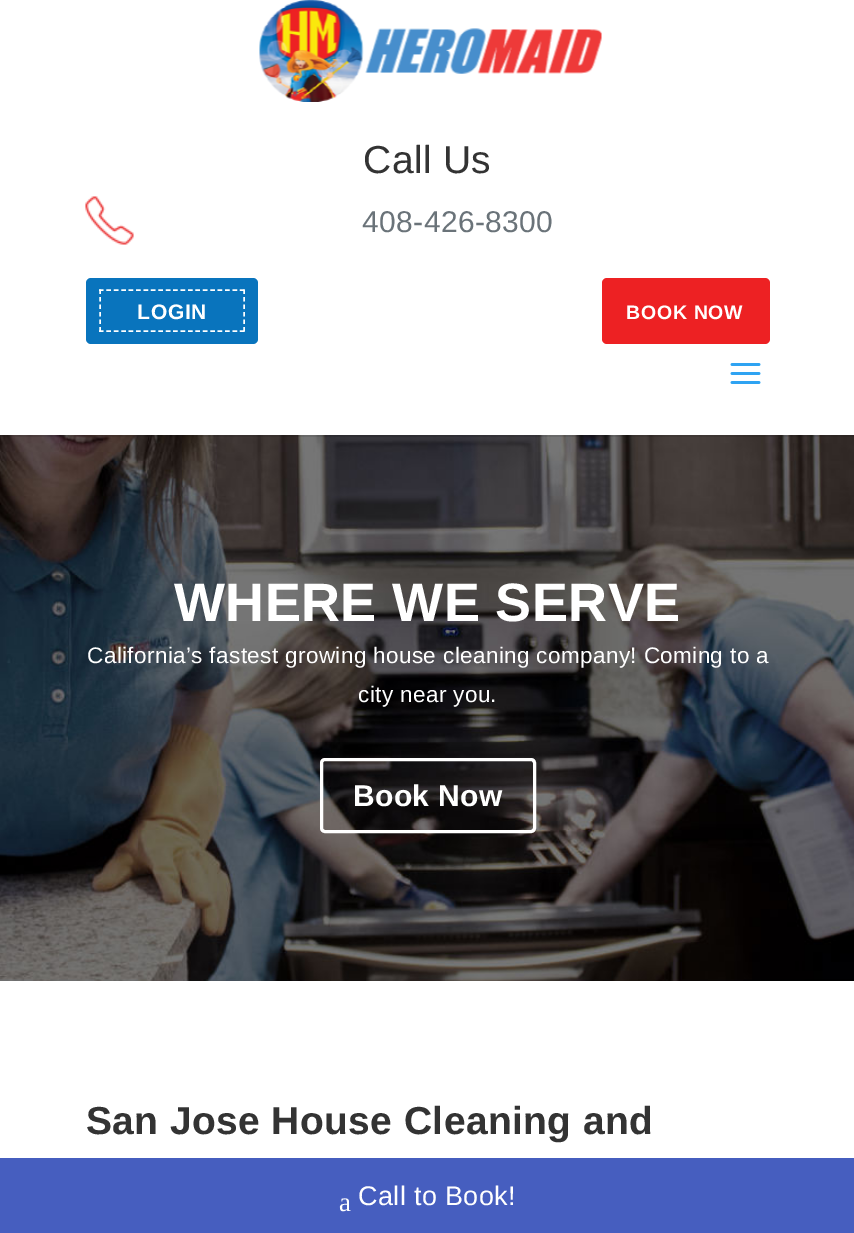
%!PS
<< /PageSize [854 1233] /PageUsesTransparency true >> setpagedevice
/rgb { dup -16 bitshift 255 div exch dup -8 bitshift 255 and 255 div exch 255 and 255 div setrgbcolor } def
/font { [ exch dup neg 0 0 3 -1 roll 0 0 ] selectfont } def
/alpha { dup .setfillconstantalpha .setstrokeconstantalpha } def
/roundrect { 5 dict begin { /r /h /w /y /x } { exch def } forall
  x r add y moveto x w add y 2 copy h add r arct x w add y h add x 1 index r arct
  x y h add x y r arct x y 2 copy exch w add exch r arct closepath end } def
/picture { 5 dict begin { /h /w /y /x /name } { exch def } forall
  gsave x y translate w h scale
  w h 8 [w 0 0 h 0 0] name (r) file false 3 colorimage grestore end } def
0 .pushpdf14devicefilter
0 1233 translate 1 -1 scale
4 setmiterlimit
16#FFFFFF rgb
0 0 854 1233 rectfill
(pic4.raw) 0 435 854 546 picture
0.1 alpha
16#000000 rgb
0 435 854 2 rectfill
1 alpha
(pic1.raw) 259 0 343 102 picture
/LiberationSans-Regular 39 font
16#333333 rgb
363 173 moveto 0.38 0 (Call Us) ashow
(pic2.raw) 85 196 49 49 picture
/LiberationSans-Regular 30 font
16#6A7379 rgb
362 232 moveto 0.38 0 (408-426-8300) ashow
16#0974BD rgb
86 278 172 66 5 roundrect fill
/LiberationSans-Bold 21 font
16#FFFFFF rgb
137 319 moveto 0.75 0 (LOGIN) ashow
1.5 setlinewidth
[4.5 2.92] 0 setdash
99 290 moveto 244.5 290 lineto stroke
[4.5 3] 0 setdash
244 289.5 moveto 244 331.5 lineto stroke
[4.5 2.92] 0 setdash
99 331 moveto 244.5 331 lineto stroke
[4.5 3] 0 setdash
100 289.5 moveto 100 331.5 lineto stroke
16#ED2123 rgb
602 278 168 66 5 roundrect fill
/LiberationSans-Bold 19.5 font
16#FFFFFF rgb
626 319 moveto 0.75 0 (BOOK NOW) ashow
(pic3.raw) 730 363 31 21 picture
/LiberationSans-Bold 54 font
174 621 moveto 0.38 0 (WHERE WE SERVE) ashow
/LiberationSans-Regular 22.5 font
87 663 moveto 0.38 0 (California’s fastest growing house cleaning company! Coming to a) ashow
358 702 moveto 0.38 0 (city near you.) ashow
3 setlinewidth
[] 0 setdash
321.5 759.5 213 72 3.5 roundrect stroke
/LiberationSans-Bold 30 font
353 806 moveto 0.38 0 (Book Now) ashow
/LiberationSans-Bold 39 font
16#333333 rgb
86 1134 moveto 0.38 0 (San Jose House Cleaning and) ashow
16#465EBF rgb
0 1158 854 75 rectfill
/LiberationSerif-Regular 27 font
16#FFFFFF rgb
339 1211 moveto 0.38 0 (a) ashow
/LiberationSans-Regular 27 font
358 1205 moveto 0.38 0 (Call to Book!) ashow
.poppdf14devicefilter showpage
